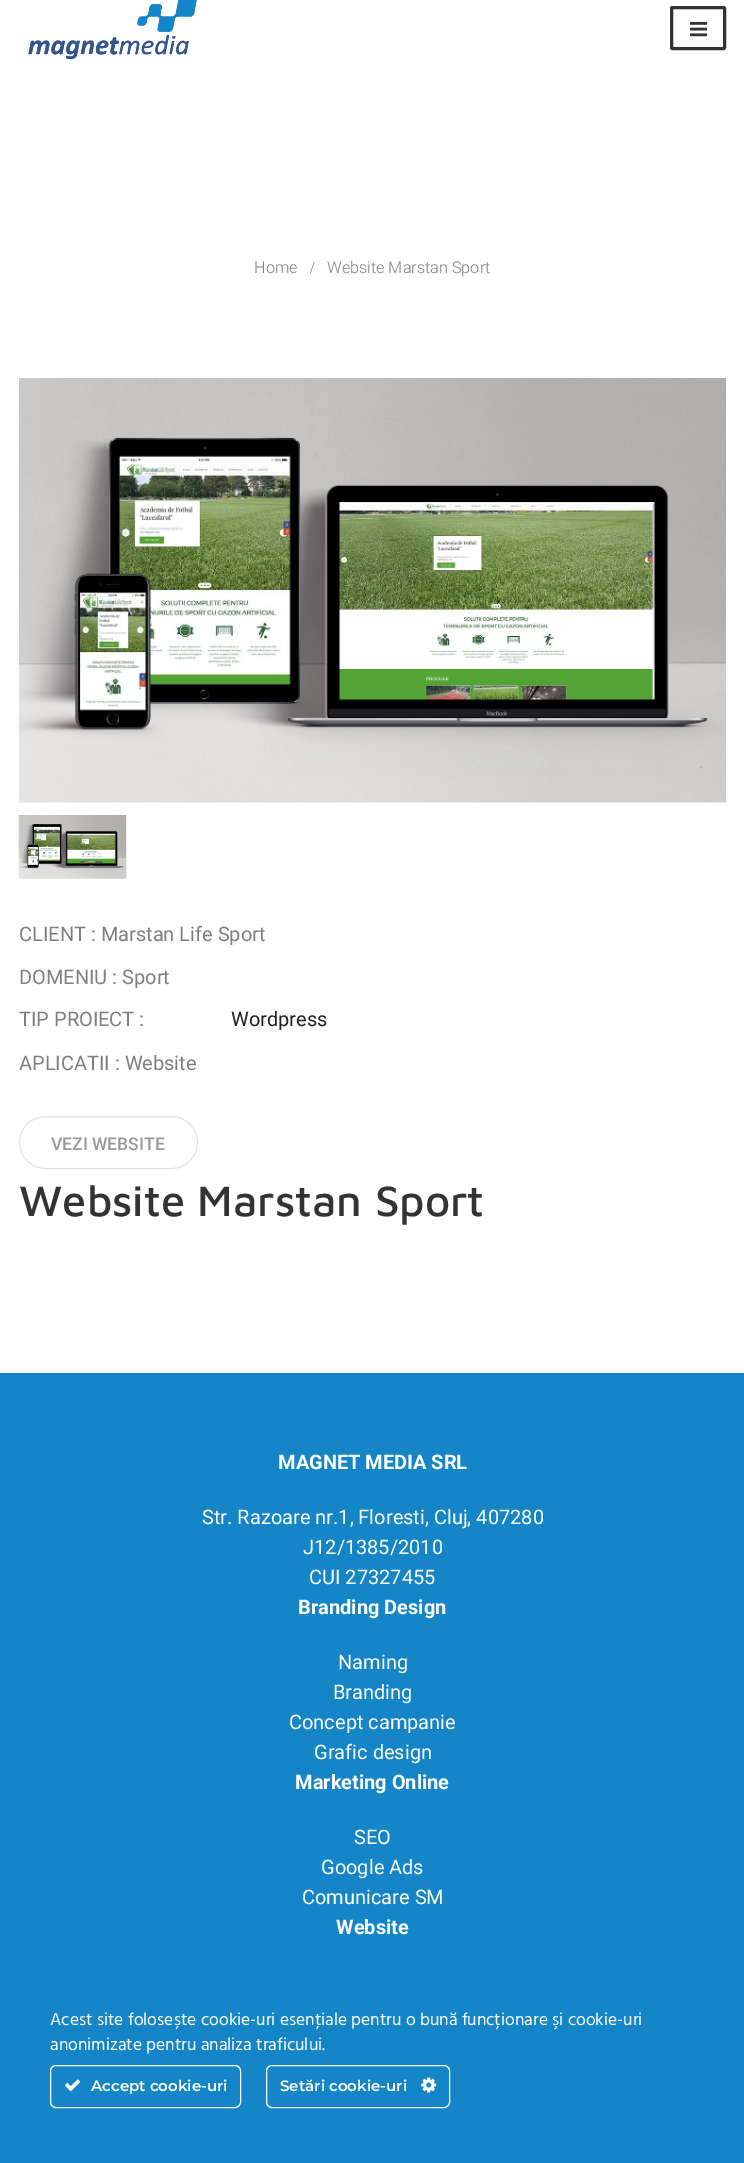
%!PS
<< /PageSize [744 2163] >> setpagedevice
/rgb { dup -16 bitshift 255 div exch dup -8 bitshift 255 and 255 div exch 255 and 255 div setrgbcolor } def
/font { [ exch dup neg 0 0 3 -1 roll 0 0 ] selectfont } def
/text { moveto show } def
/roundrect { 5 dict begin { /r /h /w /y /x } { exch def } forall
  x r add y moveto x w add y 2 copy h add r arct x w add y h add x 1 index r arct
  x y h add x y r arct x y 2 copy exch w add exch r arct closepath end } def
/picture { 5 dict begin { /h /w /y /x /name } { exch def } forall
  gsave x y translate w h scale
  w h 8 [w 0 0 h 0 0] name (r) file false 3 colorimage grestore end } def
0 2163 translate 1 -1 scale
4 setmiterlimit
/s1 { /Roboto-Light 16.25 font 16#7F7F7F rgb } def
/s2 { /LiberationSerif-Regular 16.25 font 16#7F7F7F rgb } def
/s3 { /Roboto-Regular 20 font 16#7F7F7F rgb } def
/s4 { /Roboto-Regular 20 font 16#212121 rgb } def
/s5 { /Roboto-Medium 17.5 font 16#999999 rgb } def
/s6 { /MavenPro-Medium 43.75 font 16#333333 rgb } def
/s7 { /Roboto-Bold 20 font 16#FFFFFF rgb } def
/s8 { /Roboto-Regular 20 font 16#FFFFFF rgb } def
/s9 { /Hind-Regular 17.5 font 16#FFFFFF rgb } def
/s10 { /Montserrat-SemiBold 15 font 16#FFFFFF rgb } def
16#FFFFFF rgb
0 0 744 2163 rectfill
(pic1.raw) 28 0 169 59 picture
(pic2.raw) 28 0 169 59 picture
16#333333 rgb
3 setlinewidth
671.5 7.5 53 41 1 roundrect stroke
(pic3.raw) 690 21 18 16 picture
s1
(Home) 254 273 text
s2
(/) 310 273 text
s1
(Website Marstan Sport) 327 273 text
(pic4.raw) 19 378 707 425 picture
(pic5.raw) 18 815 109 64 picture
s3
(CLIENT : Marstan Life Sport) 19 941 text
(DOMENIU : Sport) 19 984 text
(TIP PROIECT :) 19 1026 text
s4
(Wordpress) 231 1026 text
s3
(APLICATII : Website) 19 1070 text
16#E4E4E4 rgb
1 setlinewidth
19.5 1116.5 178 52 26 roundrect stroke
s5
(VEZI WEBSITE) 51 1150 text
s6
(Website Marstan Sport) 19 1216 text
16#1486C8 rgb
0 1373 744 790 rectfill
s7
(MAGNET MEDIA SRL) 278 1469 text
s8
(Str. Razoare nr.1, Floresti, Cluj, 407280) 202 1524 text
(J12/1385/2010) 303 1554 text
(CUI 27327455) 309 1584 text
s7
(Branding Design) 298 1614 text
s8
(Naming) 338 1669 text
(Branding) 333 1699 text
(Concept campanie) 289 1729 text
(Grafic design) 314 1759 text
s7
(Marketing Online) 295 1789 text
s8
(SEO) 354 1844 text
(Google Ads) 321 1874 text
(Comunicare SM) 302 1904 text
s7
(Website) 336 1934 text
s9
(Acest site folosește cookie-uri esenţiale pentru o bună funcționare şi cookie-uri) 50 2025 text
(anonimizate pentru analiza traficului.) 50 2050 text
50.5 2065.5 190 42 5.5 roundrect stroke
(pic6.raw) 65 2079 15 13 picture
s10
(Accept cookie-uri) 91 2091 text
266.5 2065.5 183 42 5.5 roundrect stroke
(Setări cookie-uri) 280 2091 text
(pic7.raw) 421 2077 16 16 picture
showpage
